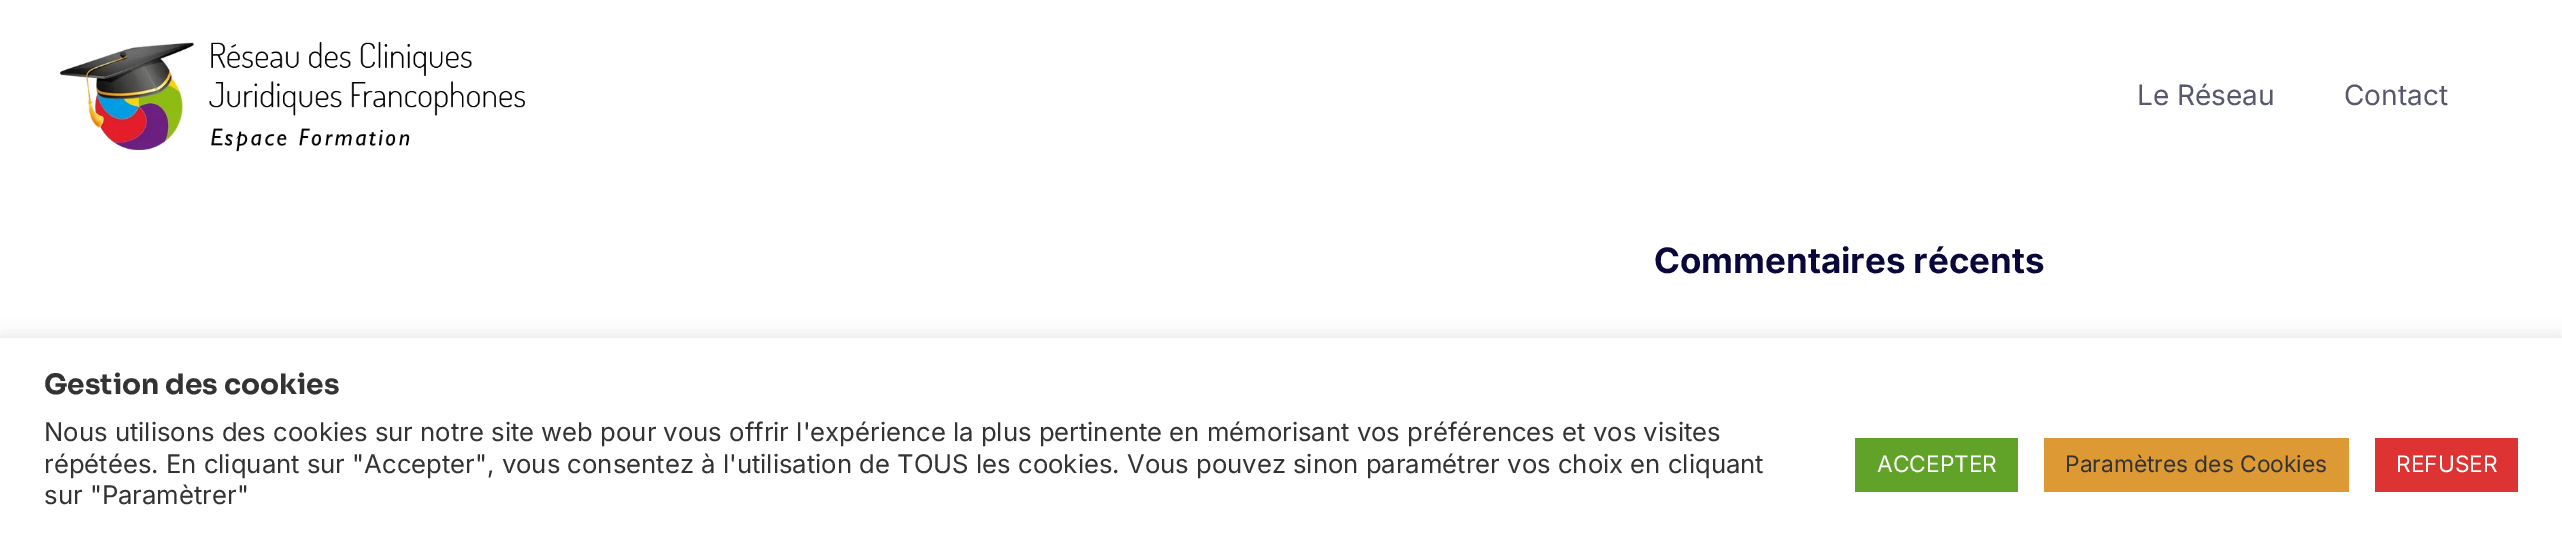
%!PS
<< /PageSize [2562 535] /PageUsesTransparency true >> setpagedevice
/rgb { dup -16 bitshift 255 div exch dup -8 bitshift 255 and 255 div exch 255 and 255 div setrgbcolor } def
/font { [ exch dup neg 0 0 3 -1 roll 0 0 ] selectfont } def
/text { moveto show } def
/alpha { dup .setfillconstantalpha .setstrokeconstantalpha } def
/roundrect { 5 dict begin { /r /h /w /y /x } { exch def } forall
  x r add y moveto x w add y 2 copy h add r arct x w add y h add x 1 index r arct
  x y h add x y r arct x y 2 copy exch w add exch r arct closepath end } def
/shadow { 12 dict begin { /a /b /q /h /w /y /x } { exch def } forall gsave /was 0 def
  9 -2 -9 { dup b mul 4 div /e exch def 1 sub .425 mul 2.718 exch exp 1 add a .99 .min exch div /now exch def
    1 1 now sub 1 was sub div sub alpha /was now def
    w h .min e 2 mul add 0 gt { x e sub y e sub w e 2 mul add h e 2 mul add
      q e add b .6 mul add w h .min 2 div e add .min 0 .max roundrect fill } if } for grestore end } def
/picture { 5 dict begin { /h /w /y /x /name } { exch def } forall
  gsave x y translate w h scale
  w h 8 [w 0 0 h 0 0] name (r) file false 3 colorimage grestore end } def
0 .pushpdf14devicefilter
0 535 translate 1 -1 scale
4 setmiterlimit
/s1 { /Inter-Regular 28 font 16#57586E rgb } def
/s2 { /Inter-Bold 35 font 16#0A083B rgb } def
/s3 { /Sora-Bold 28 font 16#333333 rgb } def
/s4 { /Inter-Regular 25.67 font 16#333333 rgb } def
/s5 { /Inter-Regular 22.75 font 16#FFFFFF rgb } def
/s6 { /Inter-Regular 22.75 font 16#333333 rgb } def
16#FFFFFF rgb
0 0 2562 535 rectfill
(pic1.raw) 60 42 465 110 picture
s1
(Le Réseau) 2137 105 text
(Contact) 2344 105 text
s2
(Commentaires récents) 1654 273 text
16#ACABAB rgb
0 336 2562 198 0 9 0.3 shadow
16#FFFFFF rgb
0 338 2562 197 rectfill
s3
(Gestion des cookies) 44 394 text
s4
(Nous utilisons des cookies sur notre site web pour vous offrir l'expérience la plus pertinente en mémorisant vos préférences et vos visites) 44 441 text
(répétées. En cliquant sur "Accepter", vous consentez à l'utilisation de TOUS les cookies. Vous pouvez sinon paramétrer vos choix en cliquant) 44 473 text
(sur "Paramètrer") 44 504 text
16#61A229 rgb
1855 438 163 54 rectfill
s5
(ACCEPTER) 1877 472 text
16#DD9933 rgb
2044 438 305 54 rectfill
s6
(Paramètres des Cookies) 2065 472 text
16#DD3333 rgb
2375 438 143 54 rectfill
s5
(REFUSER) 2396 472 text
.poppdf14devicefilter showpage
